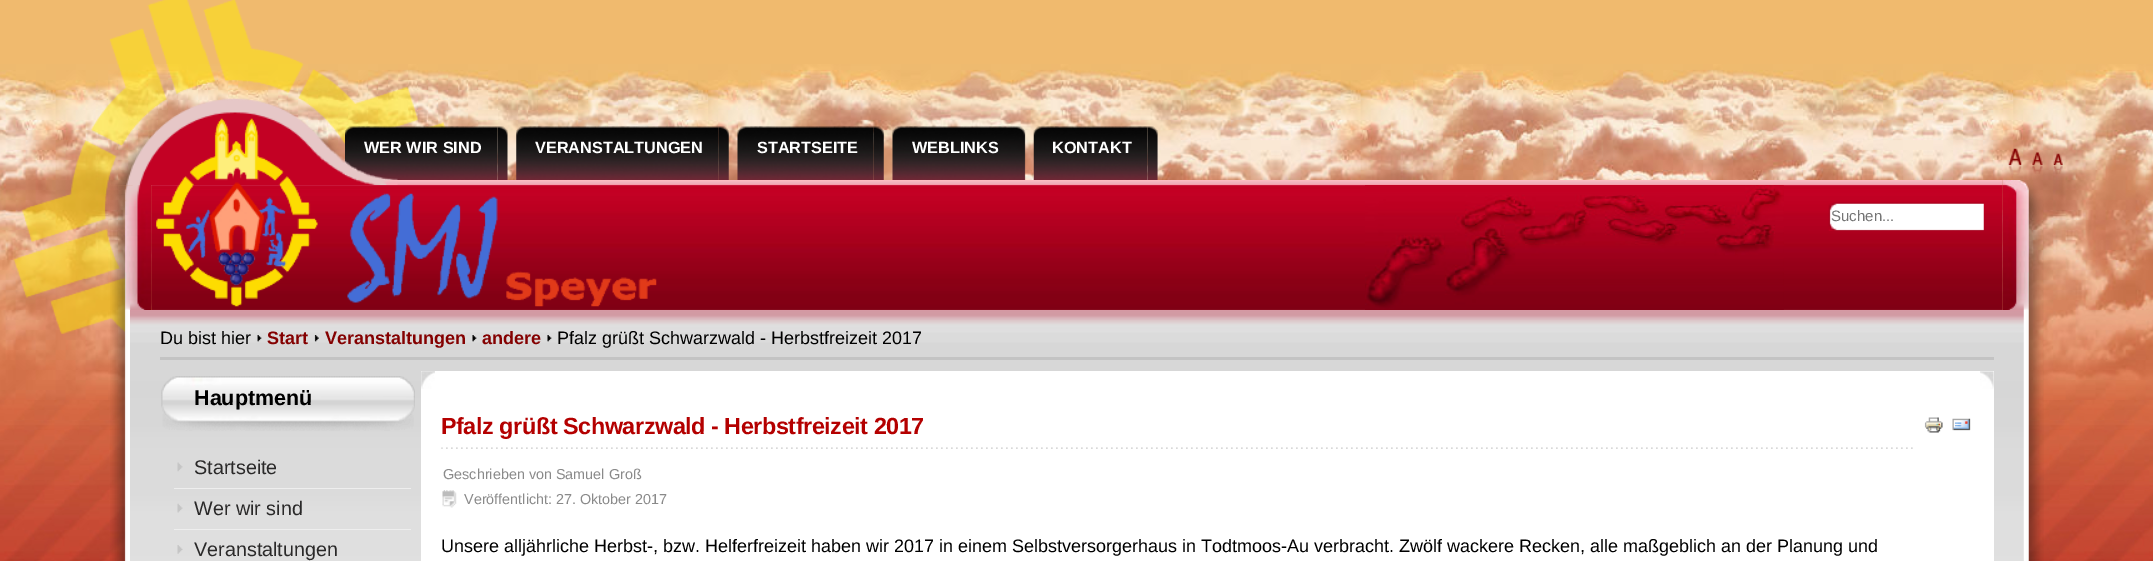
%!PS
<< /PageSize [2153 561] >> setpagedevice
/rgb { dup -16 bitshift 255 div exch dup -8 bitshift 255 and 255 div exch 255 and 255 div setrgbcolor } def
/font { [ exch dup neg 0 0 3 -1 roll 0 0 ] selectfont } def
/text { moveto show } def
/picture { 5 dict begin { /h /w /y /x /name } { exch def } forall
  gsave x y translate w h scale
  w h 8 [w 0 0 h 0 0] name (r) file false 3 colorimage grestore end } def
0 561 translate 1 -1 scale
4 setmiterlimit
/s1 { /LiberationSans-Bold 16.25 font 16#FFFFFF rgb } def
/s2 { /LiberationSans-Regular 15 font 16#757575 rgb } def
/s3 { /LiberationSans-Regular 18 font 16#000000 rgb } def
/s4 { /LiberationSans-Bold 18 font 16#840101 rgb } def
/s5 { /LiberationSans-Bold 21.5 font 16#000000 rgb } def
/s6 { /LiberationSans-Regular 19.75 font 16#2A2929 rgb } def
/s7 { /LiberationSans-Regular 14.4 font 16#8A8A8A rgb } def
16#FFFFFF rgb
0 0 2153 561 rectfill
16#F0BA6E rgb
0 0 2153 64 rectfill
(pic1.raw) 0 64 2153 336 picture
(pic13.raw) 13 0 433 334 picture
(pic19.raw) 110 184 42 126 picture
(pic20.raw) 2002 180 42 130 picture
(pic21.raw) 151 180 1852 130 picture
(pic14.raw) 111 98 234 87 picture
(pic15.raw) 156 118 501 189 picture
(pic2.raw) 497 126 11 54 picture
(pic3.raw) 345 126 153 54 picture
s1
(WER WIR SIND) 364 153 text
(pic4.raw) 718 126 11 54 picture
(pic5.raw) 516 126 203 54 picture
(VERANSTALTUNGEN) 535 153 text
(pic6.raw) 873 126 11 54 picture
(pic7.raw) 737 126 137 54 picture
(STARTSEITE) 757 153 text
(pic8.raw) 1015 126 11 54 picture
(pic9.raw) 892 126 123 54 picture
(WEBLINKS) 912 153 text
(pic10.raw) 1147 126 11 54 picture
(pic11.raw) 1033 126 115 54 picture
(KONTAKT) 1052 153 text
(pic12.raw) 345 160 53 25 picture
(pic16.raw) 2008 148 14 27 picture
(pic17.raw) 2032 152 11 22 picture
(pic18.raw) 2053 153 10 21 picture
(pic22.raw) 1365 185 419 125 picture
(pic23.raw) 1828 202 156 29 picture
s2
(Suchen...) 1831 221 text
(pic40.raw) 0 400 2153 161 picture
(pic24.raw) 110 310 20 251 picture
(pic25.raw) 2023 310 21 251 picture
(pic26.raw) 130 310 1894 251 picture
16#C3C3C3 rgb
160 357 1834 3 rectfill
s3
(Du bist hier) 160 344 text
(pic27.raw) 257 335 5 7 picture
s4
(Start) 267 344 text
(pic28.raw) 314 335 5 7 picture
(Veranstaltungen) 325 344 text
(pic29.raw) 472 335 5 7 picture
(andere) 482 344 text
(pic29.raw) 547 335 5 7 picture
s3
(Pfalz grüßt Schwarzwald - Herbstfreizeit 2017) 557 344 text
(pic30.raw) 161 376 254 55 picture
s5
(Hauptmenü) 194 405 text
(pic31.raw) 177 462 6 10 picture
16#EEEEEE rgb
174 488 237 1 rectfill
s6
(Startseite) 194 474 text
(pic32.raw) 177 503 6 10 picture
16#EEEEEE rgb
174 529 237 1 rectfill
s6
(Wer wir sind) 194 515 text
(pic33.raw) 177 545 6 9 picture
(Veranstaltungen) 194 556 text
16#FFFFFF rgb
421 371 1573 190 rectfill
(pic34.raw) 421 371 14 18 picture
(pic35.raw) 1980 371 14 18 picture
(pic36.raw) 441 447 1472 2 picture
/LiberationSans-Bold 23.4 font
16#B40000 rgb
441 434 moveto -0.45 0 (Pfalz grüßt Schwarzwald - Herbstfreizeit 2017) ashow
(pic37.raw) 1924 417 19 16 picture
(pic38.raw) 1952 418 19 13 picture
s7
(Geschrieben von Samuel Groß) 443 479 text
(pic39.raw) 442 490 15 18 picture
(Veröffentlicht: 27. Oktober 2017) 464 504 text
s3
(Unsere alljährliche Herbst-, bzw. Helferfreizeit haben wir 2017 in einem Selbstversorgerhaus in Todtmoos-Au verbracht. Zwölf wackere Recken, alle maßgeblich an der Planung und) 441 552 text
showpage
